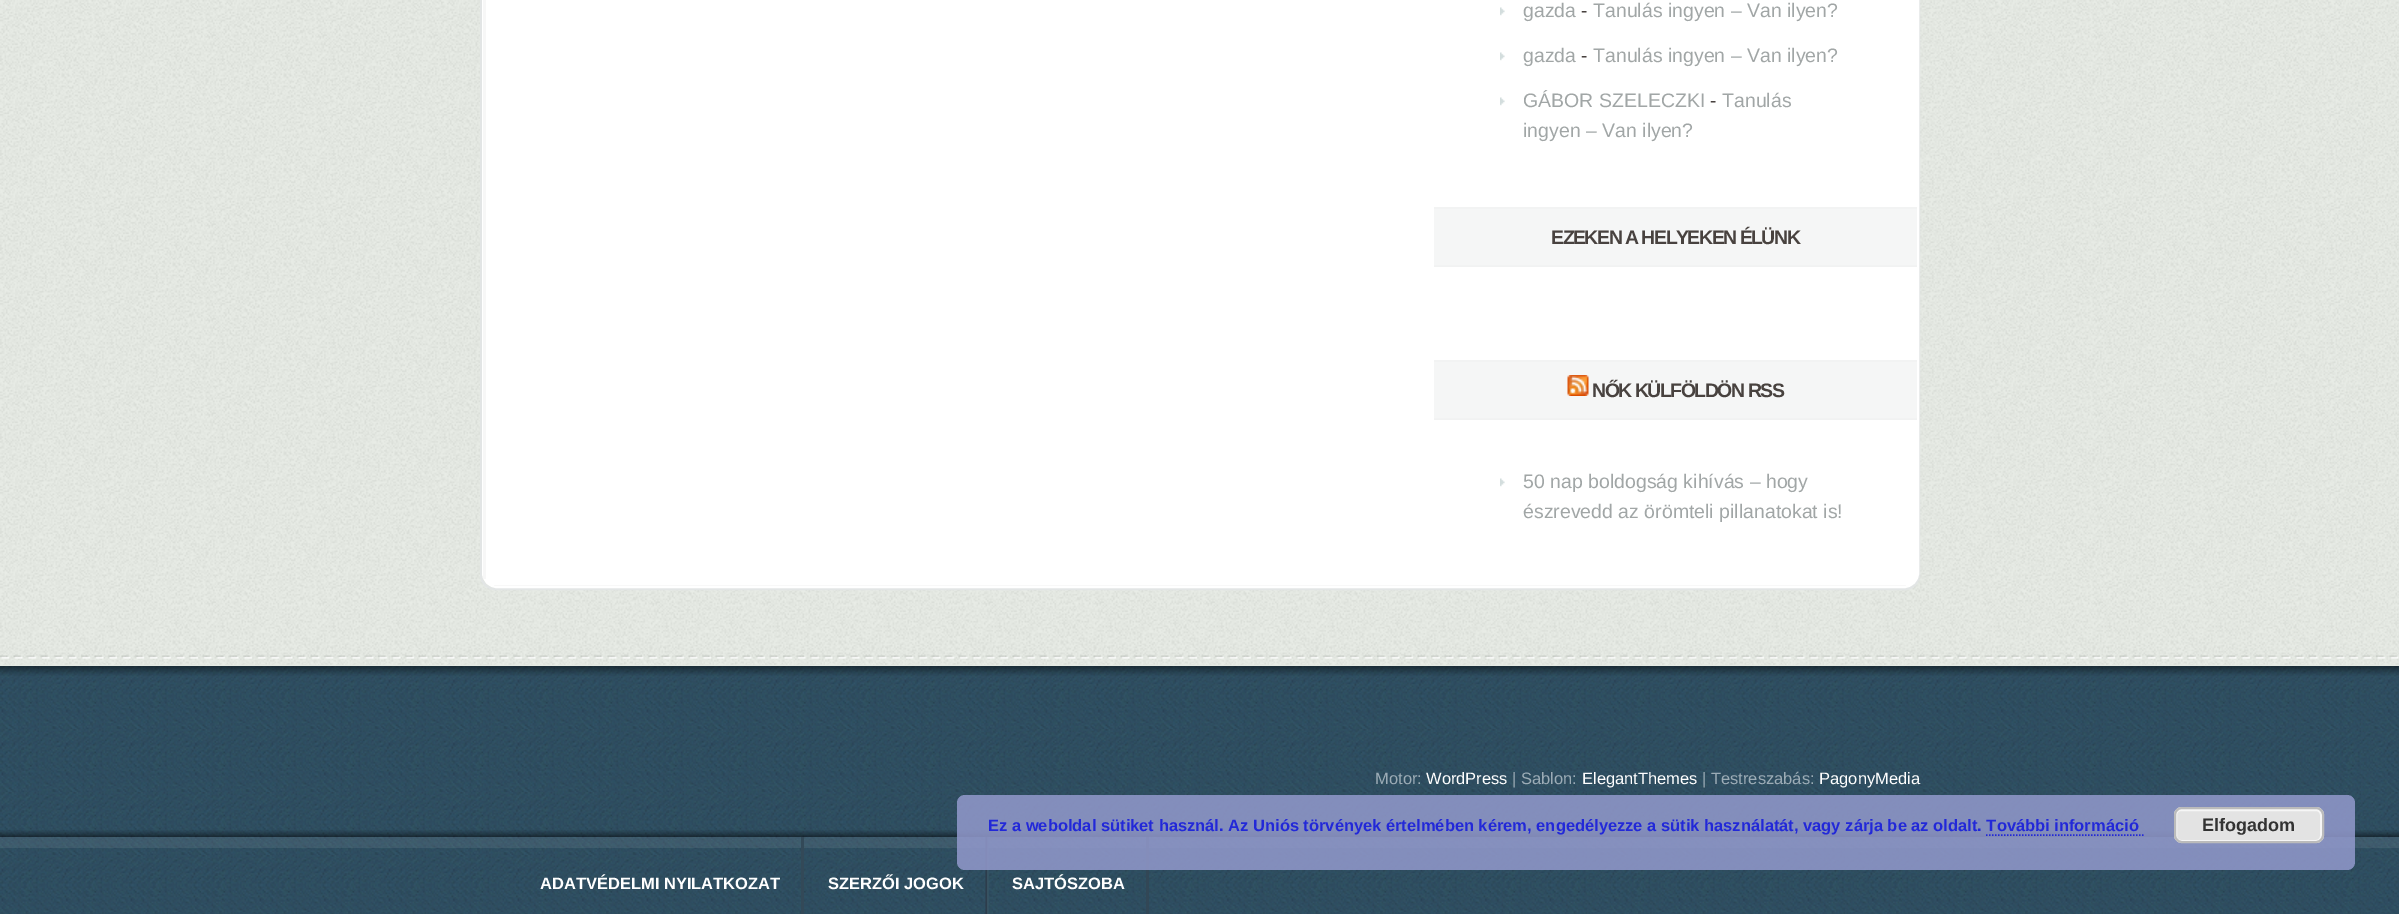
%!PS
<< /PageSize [2399 914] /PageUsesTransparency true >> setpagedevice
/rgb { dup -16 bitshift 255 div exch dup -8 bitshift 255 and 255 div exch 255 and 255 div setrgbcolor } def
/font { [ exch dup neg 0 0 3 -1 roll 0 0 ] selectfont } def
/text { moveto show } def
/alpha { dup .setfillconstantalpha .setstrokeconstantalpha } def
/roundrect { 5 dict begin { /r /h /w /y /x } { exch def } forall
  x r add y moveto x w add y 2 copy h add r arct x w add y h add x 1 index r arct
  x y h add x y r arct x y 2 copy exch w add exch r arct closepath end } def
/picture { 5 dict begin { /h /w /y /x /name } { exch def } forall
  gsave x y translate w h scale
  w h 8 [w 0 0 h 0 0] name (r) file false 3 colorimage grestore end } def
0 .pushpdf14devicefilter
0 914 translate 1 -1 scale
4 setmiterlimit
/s1 { /LiberationSans-Regular 19.5 font 16#A1A6A6 rgb } def
/s2 { /LiberationSans-Regular 19.5 font 16#48423F rgb } def
/s3 { /LiberationSans-Regular 16.5 font 16#9CACB6 rgb } def
/s4 { /LiberationSans-Regular 16.5 font 16#FFFFFF rgb } def
/s5 { /LiberationSans-Bold 16.5 font 16#FFFFFF rgb } def
/s6 { /LiberationSans-Bold 16.5 font 16#2228D8 rgb } def
/s7 { /LiberationSans-Bold 18 font 16#333333 rgb } def
16#E6EBE4 rgb
0 0 2399 914 rectfill
(pic1.raw) 0 0 2399 665 picture
16#E2E5E5 rgb
2 setlinewidth
481 -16 1438 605 14 roundrect stroke
16#FFFFFF rgb
483 -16 1435 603 14 roundrect gsave fill grestore
stroke
16#F7F7F7 rgb
483 0 3 579 rectfill
(pic2.raw) 494 585 1412 1 picture
(pic3.raw) 1500 7 5 9 picture
s1
(gazda) 1523 17 text
s2
(-) 1581 17 text
s1
(Tanulás ingyen – Van ilyen?) 1593 17 text
(pic3.raw) 1500 52 5 9 picture
(gazda) 1523 62 text
s2
(-) 1581 62 text
s1
(Tanulás ingyen – Van ilyen?) 1593 62 text
(pic3.raw) 1500 97 5 9 picture
(GÁBOR SZELECZKI) 1523 107 text
s2
(-) 1710 107 text
s1
(Tanulás) 1722 107 text
(ingyen – Van ilyen?) 1523 137 text
(pic4.raw) 1434 207 483 60 picture
/LiberationSans-Bold 19.5 font
16#48423F rgb
1551 244 moveto -1.5 0 (EZEKEN A HELYEKEN ÉLÜNK) ashow
(pic4.raw) 1434 360 483 60 picture
(pic5.raw) 1567 375 22 21 picture
1592 397 moveto -1.5 0 (NŐK KÜLFÖLDÖN RSS) ashow
(pic3.raw) 1500 478 5 9 picture
s1
(50 nap boldogság kihívás – hogy) 1523 488 text
(észrevedd az örömteli pillanatokat is!) 1523 518 text
(pic6.raw) 0 655 2399 4 picture
(pic7.raw) 0 666 2399 248 picture
(pic8.raw) 0 666 2399 10 picture
s3
(Motor:) 1375 784 text
s4
(WordPress) 1426 784 text
s3
(| Sablon:) 1512 784 text
s4
(ElegantThemes) 1582 784 text
s3
(| Testreszabás:) 1702 784 text
s4
(PagonyMedia) 1819 784 text
(pic9.raw) 0 830 2399 7 picture
0.08 alpha
0 837 2399 11 rectfill
1 alpha
16#334958 rgb
801 837 3 77 rectfill
s5
(ADATVÉDELMI NYILATKOZAT) 540 889 text
(pic10.raw) 985 837 4 77 picture
(SZERZŐI JOGOK) 828 889 text
16#324756 rgb
1146 837 3 77 rectfill
s5
(SAJTÓSZOBA) 1012 889 text
0.85 alpha
16#9299CC rgb
957 795 1398 75 8 roundrect fill
1 alpha
s6
(Ez a weboldal sütiket használ. Az Uniós törvények értelmében kérem, engedélyezze a sütik használatát, vagy zárja be az oldalt. További információ) 988 831 text
16#E3E3E3 rgb
2174 807 150 36 8 roundrect fill
16#F6F6F6 rgb
2176 810 145 31 5 roundrect stroke
16#BBBBBB rgb
2175 808 148 34 7 roundrect stroke
s7
(Elfogadom) 2202 831 text
16#2228D8 rgb
1.5 setlinewidth
[1.5 1.5] 0 setdash
1986 835 moveto 2143.5 835 lineto stroke
.poppdf14devicefilter showpage
